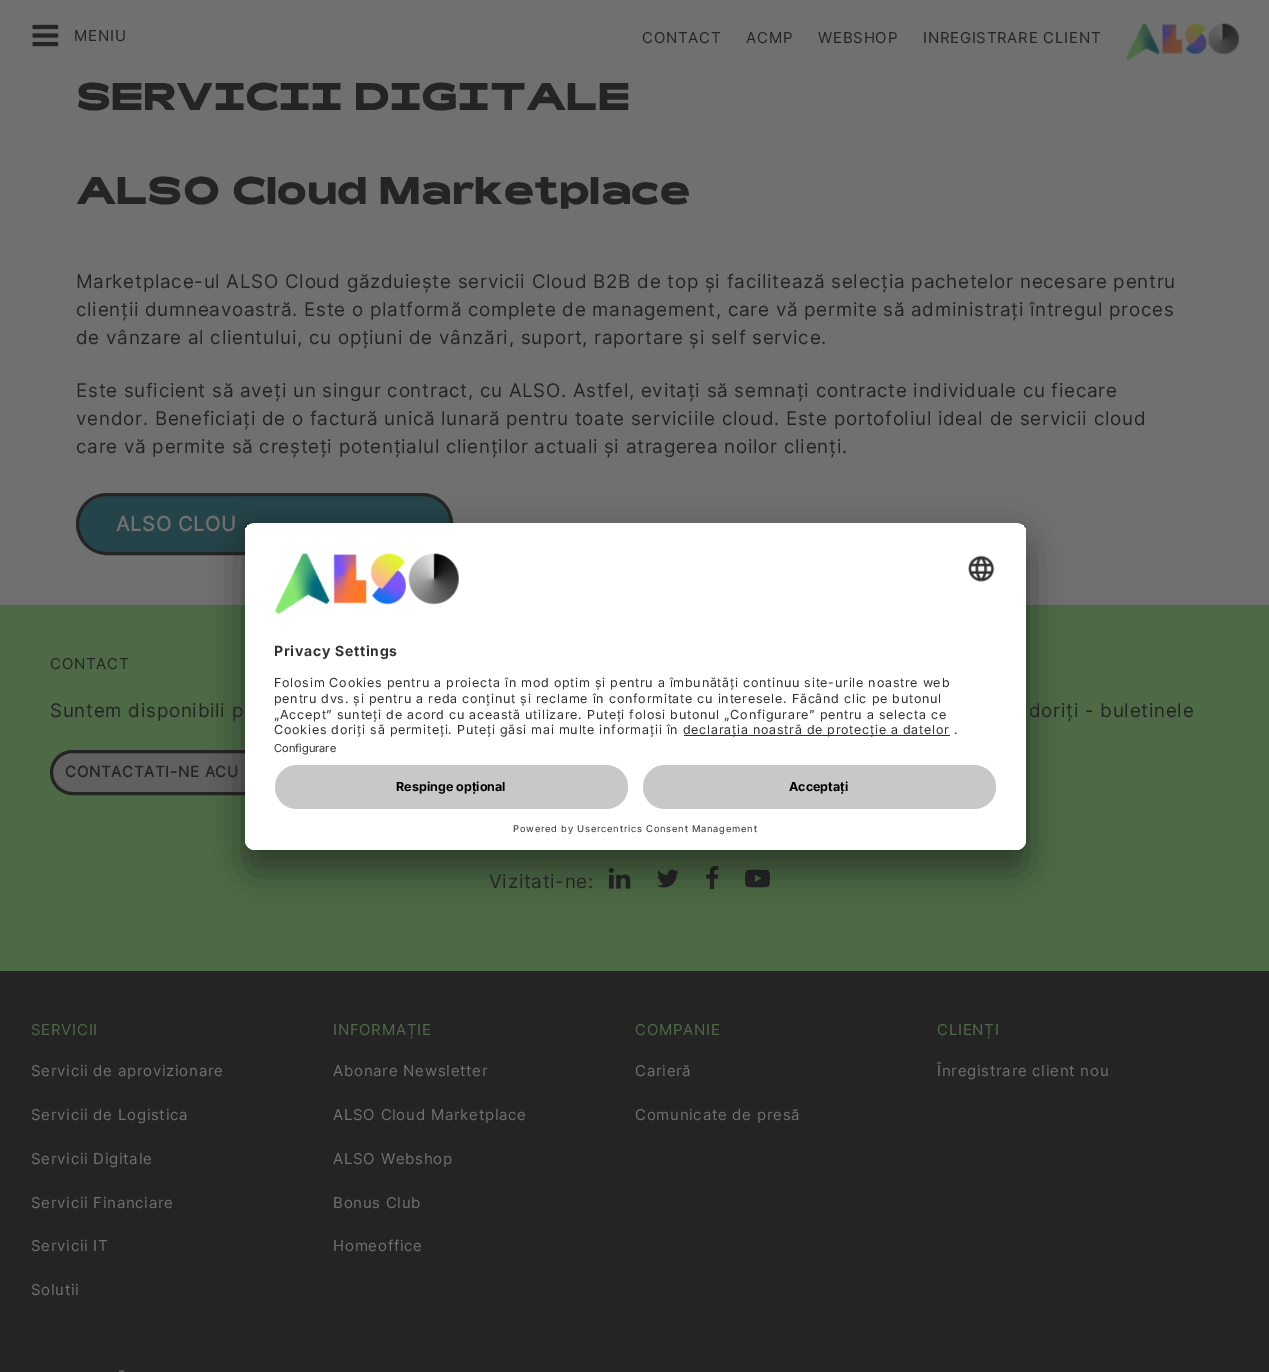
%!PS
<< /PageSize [1269 1372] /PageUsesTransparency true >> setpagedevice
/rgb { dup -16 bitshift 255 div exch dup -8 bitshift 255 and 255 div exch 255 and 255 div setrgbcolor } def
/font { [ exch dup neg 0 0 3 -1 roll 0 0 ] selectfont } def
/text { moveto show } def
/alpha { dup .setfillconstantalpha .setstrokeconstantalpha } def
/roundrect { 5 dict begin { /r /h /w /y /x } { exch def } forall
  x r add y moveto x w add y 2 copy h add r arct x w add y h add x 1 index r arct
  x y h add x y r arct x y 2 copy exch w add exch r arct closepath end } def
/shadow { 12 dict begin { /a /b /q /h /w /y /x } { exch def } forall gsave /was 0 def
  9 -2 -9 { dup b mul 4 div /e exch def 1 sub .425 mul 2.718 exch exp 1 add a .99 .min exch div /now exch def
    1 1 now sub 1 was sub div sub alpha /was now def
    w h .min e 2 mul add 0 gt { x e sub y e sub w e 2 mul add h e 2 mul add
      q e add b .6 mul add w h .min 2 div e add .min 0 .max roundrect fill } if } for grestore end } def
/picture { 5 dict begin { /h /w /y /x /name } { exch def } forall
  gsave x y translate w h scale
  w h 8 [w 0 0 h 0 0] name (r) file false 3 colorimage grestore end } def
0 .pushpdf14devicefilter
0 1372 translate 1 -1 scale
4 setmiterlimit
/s1 { /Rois-Bold 37.5 font 16#242424 rgb } def
/s2 { /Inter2-Regular 11 font 16#303030 rgb } def
/s3 { /Inter2-Bold 12.5 font 16#000000 rgb } def
16#707070 rgb
0 0 1269 1372 rectfill
(pic1.raw) 32 24 27 23 picture
/Inter-Regular 15 font
16#242424 rgb
74 41 moveto 0.75 0 (MENIU) ashow
642 43 moveto 0.75 0 (CONTACT) ashow
746 43 moveto 0.75 0 (ACMP) ashow
818 43 moveto 0.75 0 (WEBSHOP) ashow
923 43 moveto 0.75 0 (INREGISTRARE CLIENT) ashow
(pic2.raw) 1126 23 113 38 picture
s1
(SERVICII DIGITALE) 76 110 text
(ALSO Cloud Marketplace) 76 204 text
/Inter-Regular 18.75 font
76 288 moveto 0.75 0 (Marketplace-ul ALSO Cloud găzduiește servicii Cloud B2B de top și facilitează selecția pachetelor necesare pentru) ashow
76 316 moveto 0.75 0 (clienții dumneavoastră. Este o platformă complete de management, care vă permite să administrați întregul proces) ashow
76 344 moveto 0.75 0 (de vânzare al clientului, cu opțiuni de vânzări, suport, raportare și self service.) ashow
76 397 moveto 0.75 0 (Este suficient să aveți un singur contract, cu ALSO. Astfel, evitați să semnați contracte individuale cu fiecare) ashow
76 425 moveto 0.75 0 (vendor. Beneficiați de o factură unică lunară pentru toate serviciile cloud. Este portofoliul ideal de servicii cloud) ashow
76 453 moveto 0.75 0 (care vă permite să creșteți potențialul clienților actuali și atragerea noilor clienți.) ashow
16#244449 rgb
77.5 494.5 374 59 29.5 roundrect gsave fill grestore
16#242424 rgb
3 setlinewidth
stroke
/Inter-Bold 20 font
16#707070 rgb
116 531 moveto 0.75 0 (ALSO CLOU) ashow
16#4D6946 rgb
0 605 1269 366 rectfill
16#606060 rgb
51.5 751.5 215 42 21 roundrect gsave fill grestore
16#242424 rgb
stroke
(pic5.raw) 608 868 23 21 picture
(pic6.raw) 657 869 22 19 picture
(pic7.raw) 706 866 13 24 picture
(pic8.raw) 745 869 25 19 picture
16#000000 rgb
245 548 781 327 10 17.5 0.3 shadow
245 529 781 327 10 16 0.22 shadow
16#FFFFFF rgb
245 523 781 327 10 roundrect fill
gsave
245 523 781 327 10 roundrect clip newpath
255 523 moveto 1016 523 lineto 1021.5 523 1026 527.5 1026 533 curveto 1026 755 lineto 245 755 lineto 245 533 lineto 245 527.5 249.5 523 255 523 curveto closepath clip newpath
245 524 781 231 rectfill
grestore
(pic3.raw) 274 553 185 61 picture
(pic4.raw) 968 555 27 27 picture
/Inter2-Bold 14 font
16#303030 rgb
274 656 moveto 0.75 0 (Privacy Settings) ashow
/Inter2-Regular 12.5 font
274 687 moveto 0.75 0 (Folosim Cookies pentru a proiecta în mod optim și pentru a îmbunătăți continuu site-urile noastre web) ashow
274 703 moveto 0.75 0 (pentru dvs. și pentru a reda conținut și reclame în conformitate cu interesele. Făcând clic pe butonul) ashow
274 719 moveto 0.75 0 („Accept” sunteți de acord cu această utilizare. Puteți folosi butonul „Configurare” pentru a selecta ce) ashow
274 734 moveto 0.75 0 (Cookies doriți să permiteți. Puteți găsi mai multe informații în) ashow
684 735 266 1 rectfill
683 734 moveto 0.75 0 (declarația noastră de protecție a datelor .) ashow
s2
(Configurare) 274 752 text
16#FFFFFF rgb
245 755 moveto 1026 755 lineto 1026 840 lineto 1026 845.5 1021.5 850 1016 850 curveto 255 850 lineto 249.5 850 245 845.5 245 840 curveto closepath fill
16#C8C8C8 rgb
275 765 353 44 22 roundrect fill
s3
(Respinge opțional) 396 791 text
16#C8C8C8 rgb
643 765 353 44 22 roundrect fill
s3
(Acceptați) 789 791 text
/Inter2-Regular 9.4 font
16#303030 rgb
513 832 moveto 0.75 0 (Powered by Usercentrics Consent Management) ashow
/Inter-Regular 15 font
16#242424 rgb
50 669 moveto 0.75 0 (CONTACT) ashow
/Inter-Regular 18.75 font
50 717 moveto 0.75 0 (Suntem disponibili p) ashow
/Inter-Bold 15 font
65 777 moveto 0.75 0 (CONTACTATI-NE ACU) ashow
/Inter-Regular 18.75 font
1029 717 moveto 0.75 0 (doriți - buletinele) ashow
489 888 moveto 0.75 0 (Vizitati-ne:) ashow
0 971 1269 401 rectfill
/Inter-Regular 15 font
16#4D6946 rgb
31 1035 moveto 0.75 0 (SERVICII) ashow
16#707070 rgb
31 1076 moveto 0.75 0 (Servicii de aprovizionare) ashow
31 1120 moveto 0.75 0 (Servicii de Logistica) ashow
31 1164 moveto 0.75 0 (Servicii Digitale) ashow
31 1208 moveto 0.75 0 (Servicii Financiare) ashow
31 1251 moveto 0.75 0 (Servicii IT) ashow
31 1295 moveto 0.75 0 (Solutii) ashow
16#4D6946 rgb
333 1035 moveto 0.75 0 (INFORMAȚIE) ashow
16#707070 rgb
333 1076 moveto 0.75 0 (Abonare Newsletter) ashow
333 1120 moveto 0.75 0 (ALSO Cloud Marketplace) ashow
333 1164 moveto 0.75 0 (ALSO Webshop) ashow
333 1208 moveto 0.75 0 (Bonus Club) ashow
333 1251 moveto 0.75 0 (Homeoffice) ashow
16#4D6946 rgb
635 1035 moveto 0.75 0 (COMPANIE) ashow
16#707070 rgb
635 1076 moveto 0.75 0 (Carieră) ashow
635 1120 moveto 0.75 0 (Comunicate de presă) ashow
16#4D6946 rgb
937 1035 moveto 0.75 0 (CLIENȚI) ashow
16#707070 rgb
937 1076 moveto 0.75 0 (Înregistrare client nou) ashow
/Inter-Bold 15 font
16#575757 rgb
118 1376 moveto 0.75 0 (-) ashow
.poppdf14devicefilter showpage
